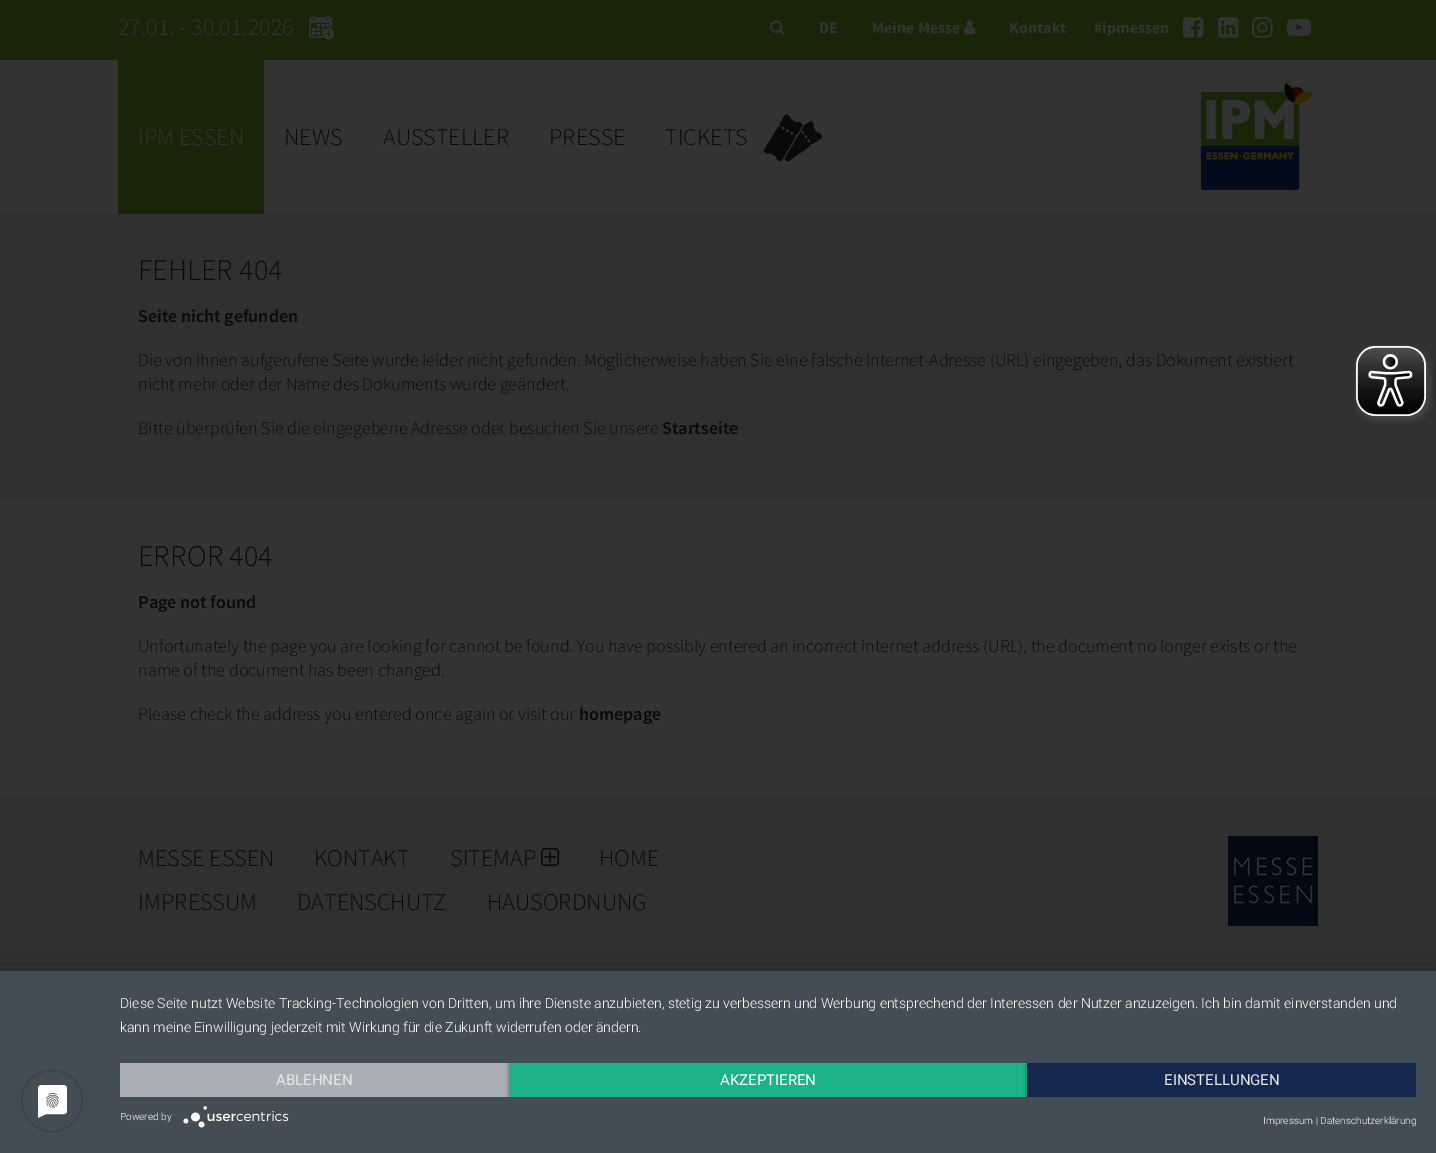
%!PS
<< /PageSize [1436 1153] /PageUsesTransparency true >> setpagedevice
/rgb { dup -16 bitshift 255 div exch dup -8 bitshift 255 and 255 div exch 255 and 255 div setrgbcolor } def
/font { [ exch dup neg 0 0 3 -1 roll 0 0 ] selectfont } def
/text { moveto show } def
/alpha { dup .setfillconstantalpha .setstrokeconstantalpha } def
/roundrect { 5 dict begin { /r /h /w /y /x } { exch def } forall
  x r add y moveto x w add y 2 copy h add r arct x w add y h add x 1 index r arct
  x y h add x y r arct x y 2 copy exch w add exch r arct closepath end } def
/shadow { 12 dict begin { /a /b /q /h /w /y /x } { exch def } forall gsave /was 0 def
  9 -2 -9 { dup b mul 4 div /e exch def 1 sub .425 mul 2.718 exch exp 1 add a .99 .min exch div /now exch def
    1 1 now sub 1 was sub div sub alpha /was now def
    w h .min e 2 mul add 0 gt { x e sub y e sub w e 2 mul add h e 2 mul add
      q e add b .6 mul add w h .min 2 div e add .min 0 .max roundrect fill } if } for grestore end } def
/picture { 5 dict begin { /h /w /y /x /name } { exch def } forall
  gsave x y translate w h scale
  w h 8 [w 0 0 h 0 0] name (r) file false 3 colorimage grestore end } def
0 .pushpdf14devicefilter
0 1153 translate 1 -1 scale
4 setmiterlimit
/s1 { /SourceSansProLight-Light 24 font 16#333333 rgb } def
/s2 { /SourceSansPro-Bold 16 font 16#333333 rgb } def
/s3 { /SourceSansProLight-Light 24 font 16#0A0A0A rgb } def
/s4 { /SourceSansProLight-Light 30 font 16#0A0A0A rgb } def
/s5 { /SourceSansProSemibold-SemiBold 18 font 16#0A0A0A rgb } def
/s6 { /SourceSansProLight-Light 18 font 16#0A0A0A rgb } def
/s7 { /Roboto-Light 14 font 16#FFFFFF rgb } def
/s8 { /Roboto-Regular 15 font 16#E6E6E6 rgb } def
/s9 { /Roboto-Regular 15 font 16#FFFFFF rgb } def
/s10 { /Roboto-Light 10 font 16#FFFFFF rgb } def
16#333333 rgb
0 0 1436 1153 rectfill
16#182508 rgb
0 0 1436 60 rectfill
s1
(27.01. - 30.01.2026) 118 35 text
(pic1.raw) 309 15 25 25 picture
(pic2.raw) 770 20 15 16 picture
s2
(DE) 819 33 text
(Meine Messe) 872 33 text
(pic3.raw) 964 20 12 15 picture
(Kontakt) 1009 33 text
(#ipmessen) 1094 33 text
(pic4.raw) 1183 17 21 21 picture
(pic5.raw) 1218 17 21 21 picture
(pic6.raw) 1252 17 21 21 picture
(pic7.raw) 1287 19 24 17 picture
16#182508 rgb
118 60 146 154 rectfill
s1
(IPM ESSEN) 138 145 text
s3
(NEWS) 284 145 text
(AUSSTELLER) 383 145 text
(PRESSE) 549 145 text
(TICKETS) 665 145 text
(pic8.raw) 763 114 60 48 picture
(pic9.raw) 1196 80 120 112 picture
16#303030 rgb
0 214 1436 286 rectfill
s4
(FEHLER 404) 138 280 text
s5
(Seite nicht gefunden) 138 322 text
s6
(Die von Ihnen aufgerufene Seite wurde leider nicht gefunden. Möglicherweise haben Sie eine falsche Internet-Adresse \(URL\) eingegeben, das Dokument existiert) 138 366 text
(nicht mehr oder der Name des Dokuments wurde geändert.) 138 390 text
(Bitte überprüfen Sie die eingegebene Adresse oder besuchen Sie unsere) 138 434 text
s5
(Startseite) 662 434 text
s4
(ERROR 404) 138 566 text
s5
(Page not found) 138 608 text
s6
(Unfortunately the page you are looking for cannot be found. You have possibly entered an incorrect internet address \(URL\), the document no longer exists or the) 138 652 text
(name of the document has been changed.) 138 676 text
(Please check the address you entered once again or visit our) 138 720 text
s5
(homepage) 579 720 text
(pic10.raw) 1353 344 80 80 picture
16#303030 rgb
0 796 1436 170 rectfill
s3
(MESSE ESSEN) 138 866 text
(KONTAKT) 314 866 text
(SITEMAP) 450 866 text
(pic11.raw) 541 847 19 19 picture
(HOME) 599 866 text
(IMPRESSUM) 138 910 text
(DATENSCHUTZ) 297 910 text
(HAUSORDNUNG) 487 910 text
(pic12.raw) 1228 836 90 90 picture
16#000000 rgb
0 977 1436 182 0 18 0.3 shadow
16#424D56 rgb
0 971 1436 182 rectfill
(pic13.raw) 21 1070 62 62 picture
s7
(Diese Seite nutzt Website Tracking-Technologien von Dritten, um ihre Dienste anzubieten, stetig zu verbessern und Werbung entsprechend der Interessen der Nutzer anzuzeigen. Ich bin damit einverstanden und) 120 1008 text
(kann meine Einwilligung jederzeit mit Wirkung für die Zukunft widerrufen oder ändern.) 120 1032 text
16#A9AFB5 rgb
120 1063 389 34 rectfill
s8
(ABLEHNEN) 276 1085 text
gsave
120 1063 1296 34 rectclip
16#000000 rgb
509 1064 518 34 0 2 0.4 shadow
grestore
16#1DB288 rgb
509 1063 518 34 rectfill
s9
(AKZEPTIEREN) 720 1085 text
gsave
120 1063 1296 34 rectclip
16#000000 rgb
1027 1064 389 34 0 2 0.4 shadow
grestore
16#14274F rgb
1027 1063 389 34 rectfill
s8
(EINSTELLUNGEN) 1164 1085 text
s10
(Powered by) 120 1120 text
(pic14.raw) 183 1106 106 22 picture
(Impressum | Datenschutzerklärung) 1263 1124 text
.poppdf14devicefilter showpage
